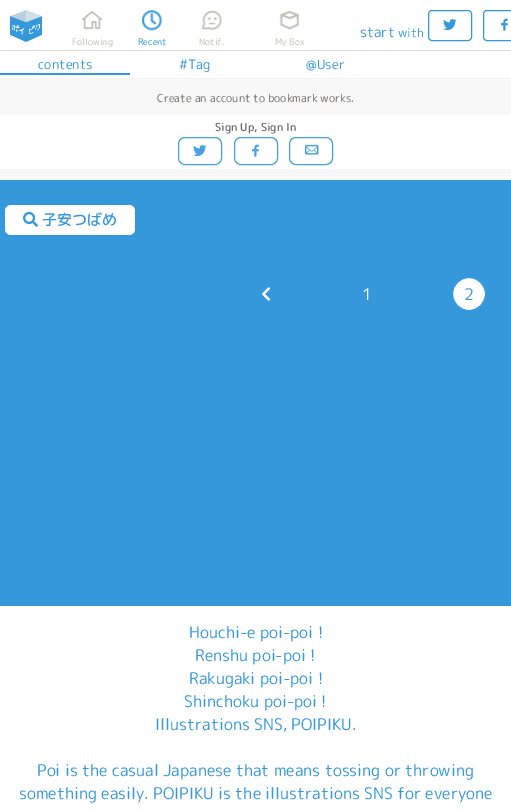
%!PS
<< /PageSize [511 810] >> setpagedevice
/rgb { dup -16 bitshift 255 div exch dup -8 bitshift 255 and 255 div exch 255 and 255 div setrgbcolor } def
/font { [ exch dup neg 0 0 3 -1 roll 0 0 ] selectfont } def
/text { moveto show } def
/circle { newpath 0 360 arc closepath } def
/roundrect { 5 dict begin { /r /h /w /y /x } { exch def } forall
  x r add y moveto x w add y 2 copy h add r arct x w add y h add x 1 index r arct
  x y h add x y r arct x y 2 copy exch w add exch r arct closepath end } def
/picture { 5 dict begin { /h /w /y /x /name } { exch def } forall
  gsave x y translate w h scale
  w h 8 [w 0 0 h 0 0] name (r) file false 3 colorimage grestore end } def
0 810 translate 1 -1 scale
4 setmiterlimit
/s1 { /RoundedMplus1c-Regular 14 font 16#3498DB rgb } def
/s2 { /RoundedMplus1c-Regular 12 font 16#3498DB rgb } def
/s3 { /RoundedMplus1c-Regular 9 font 16#C0C0B5 rgb } def
/s4 { /RoundedMplus1c-Regular 9 font 16#3498DB rgb } def
/s5 { /RoundedMplus1c-Regular 13 font 16#3498DB rgb } def
/s6 { /RoundedMplus1c-Regular 11 font 16#6D6965 rgb } def
/s7 { /RoundedMplus1c-Medium 11 font 16#6D6965 rgb } def
/s8 { /RoundedMplus1c-Medium 15 font 16#3498DB rgb } def
/s9 { /RoundedMplus1c-Regular 16 font 16#FFFFFF rgb } def
/s10 { /RoundedMplus1c-Regular 16 font 16#3498DB rgb } def
16#3498DB rgb
0 0 511 810 rectfill
16#FFFFFF rgb
0 0 511 50 rectfill
16#DDDDDD rgb
0 50 511 1 rectfill
(pic1.raw) 10 10 32 32 picture
s1
(start) 360 37 text
s2
(with) 398 37 text
428.5 10.5 43 30 3.5 roundrect stroke
(pic2.raw) 443 19 14 12 picture
483.5 10.5 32 30 3.5 roundrect stroke
(pic3.raw) 501 18 7 13 picture
(pic4.raw) 82 11 21 19 picture
s3
(Following) 72 45 text
(pic5.raw) 141 10 22 21 picture
s4
(Recent) 138 45 text
(pic6.raw) 201 10 21 21 picture
s3
(Notif.) 199 45 text
(pic7.raw) 279 11 20 19 picture
(My Box) 275 45 text
16#FFFFFF rgb
0 51 511 27 rectfill
16#F3F3F3 rgb
0 78 511 1 rectfill
16#3498DB rgb
0 73 130 2 rectfill
s5
(contents) 38 69 text
(#Tag) 179 69 text
(@User) 306 69 text
16#F8F8F8 rgb
0 79 511 101 rectfill
s6
(Create an account to bookmark works.) 157 102 text
16#FFFFFF rgb
0 115 511 54 rectfill
s7
(Sign Up, Sign In) 215 131 text
16#48A2DF rgb
178.5 137.5 43 27 6.5 roundrect stroke
(pic8.raw) 193 145 14 12 picture
234.5 137.5 43 27 6.5 roundrect stroke
(pic9.raw) 252 144 7 13 picture
289.5 137.5 43 27 6.5 roundrect stroke
(pic10.raw) 305 144 14 11 picture
16#FFFFFF rgb
5 205 130 30 6 roundrect fill
(pic11.raw) 23 211 15 16 picture
s8
(子安つばめ) 42 225 text
(pic12.raw) 261 287 10 14 picture
s9
(1) 362 300 text
469 294 16.5 circle gsave fill grestore
16#3498DB rgb
stroke
(2) 464 300 text
16#FFFFFF rgb
0 606 511 204 rectfill
s10
(Houchi-e poi-poi !) 189 638 text
(Renshu poi-poi !) 195 661 text
(Rakugaki poi-poi !) 189 684 text
(Shinchoku poi-poi !) 184 707 text
(Illustrations SNS, POIPIKU.) 155 730 text
(Poi is the casual Japanese that means tossing or throwing) 37 776 text
(something easily. POIPIKU is the illustrations SNS for everyone) 19 799 text
showpage
